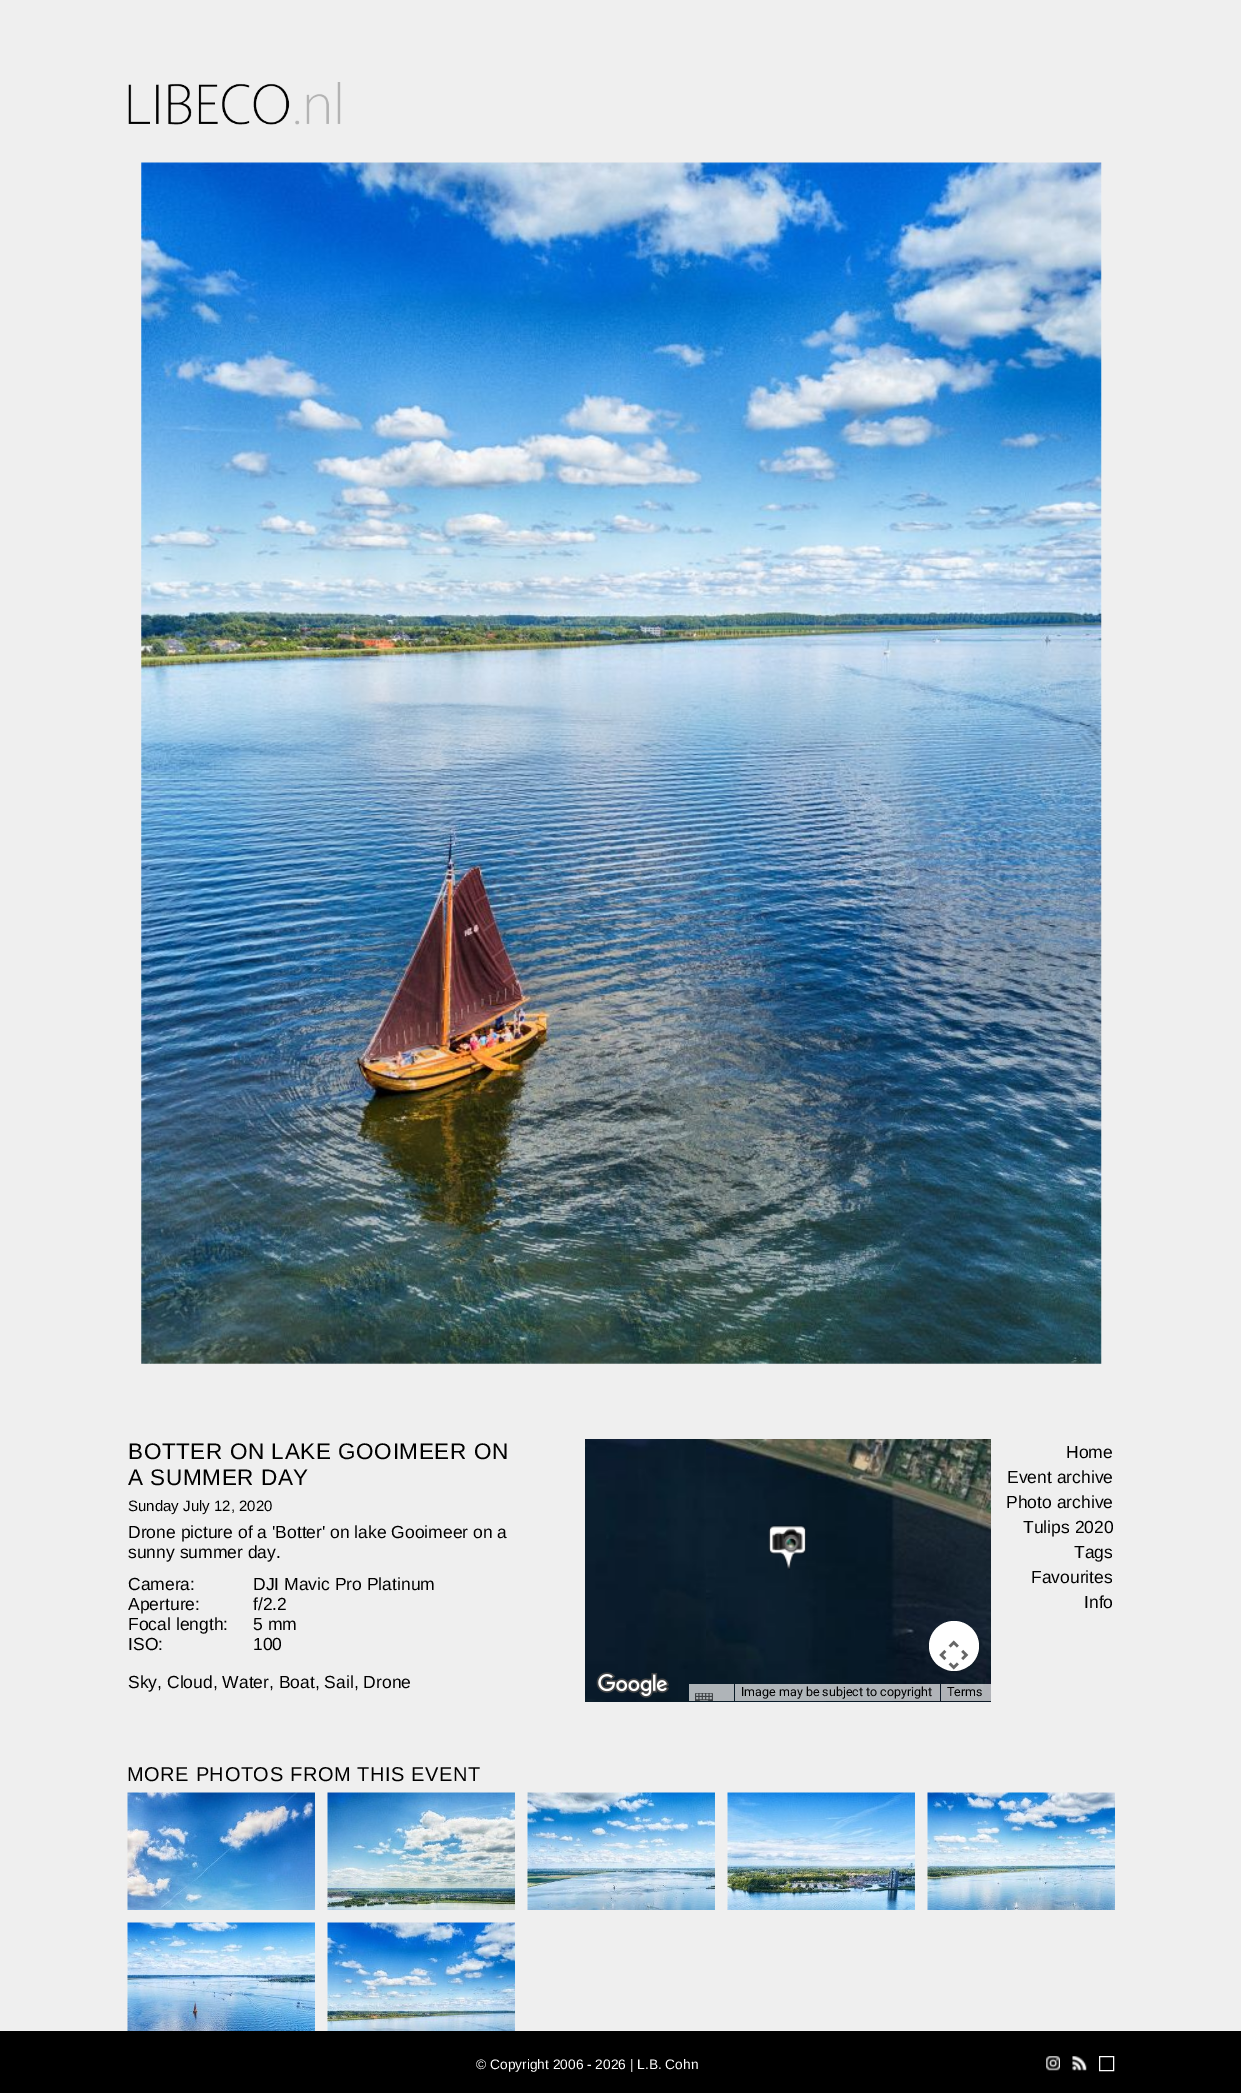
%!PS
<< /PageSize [1241 2093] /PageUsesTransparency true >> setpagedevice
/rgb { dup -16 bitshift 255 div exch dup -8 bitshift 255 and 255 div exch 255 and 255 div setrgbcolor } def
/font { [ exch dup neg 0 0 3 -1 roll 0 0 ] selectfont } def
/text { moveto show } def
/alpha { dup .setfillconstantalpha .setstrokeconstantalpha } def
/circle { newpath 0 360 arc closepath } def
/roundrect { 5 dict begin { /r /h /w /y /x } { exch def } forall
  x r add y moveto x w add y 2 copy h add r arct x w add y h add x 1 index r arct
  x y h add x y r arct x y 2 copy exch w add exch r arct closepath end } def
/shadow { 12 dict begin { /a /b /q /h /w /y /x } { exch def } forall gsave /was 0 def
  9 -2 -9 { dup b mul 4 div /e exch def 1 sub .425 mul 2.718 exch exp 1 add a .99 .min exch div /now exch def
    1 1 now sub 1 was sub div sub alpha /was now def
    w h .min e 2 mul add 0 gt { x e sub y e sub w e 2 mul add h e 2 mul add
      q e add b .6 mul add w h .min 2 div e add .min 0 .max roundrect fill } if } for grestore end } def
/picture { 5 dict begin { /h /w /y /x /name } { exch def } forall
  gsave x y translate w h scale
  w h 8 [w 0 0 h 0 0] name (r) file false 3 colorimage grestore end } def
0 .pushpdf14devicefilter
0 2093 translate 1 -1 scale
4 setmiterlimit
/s1 { /LiberationSans-Regular 15 font 16#000000 rgb } def
/s2 { /LiberationSans-Regular 17.5 font 16#000000 rgb } def
/s3 { /Roboto-Regular 12.5 font 16#000000 rgb } def
/s4 { /LiberationSans-Regular 13.75 font 16#FFFFFF rgb } def
16#EFEFEF rgb
0 0 1241 2093 rectfill
(pic1.raw) 128 82 213 43 picture
(pic2.raw) 141 162 961 1202 picture
/LiberationSans-Regular 22.5 font
16#000000 rgb
128 1459 moveto 0.6 0 (BOTTER ON LAKE GOOIMEER ON) ashow
128 1485 moveto 0.6 0 (A SUMMER DAY) ashow
s1
(Sunday July 12, 2020) 128 1511 text
s2
(Drone picture of a 'Botter' on lake Gooimeer on a) 128 1538 text
(sunny summer day.) 128 1558 text
(Camera:) 128 1590 text
(DJI Mavic Pro Platinum) 253 1590 text
(Aperture:) 128 1610 text
(f/2.2) 253 1610 text
(Focal length:) 128 1630 text
(5 mm) 253 1630 text
(ISO:) 128 1650 text
(100) 253 1650 text
(Sky, Cloud, Water, Boat, Sail, Drone) 128 1688 text
(Home) 1066 1458 text
(Event archive) 1007 1483 text
(Photo archive) 1006 1508 text
(Tulips 2020) 1023 1533 text
(Tags) 1074 1558 text
(Favourites) 1031 1583 text
(Info) 1084 1608 text
(pic3.raw) 585 1439 121 220 picture
(pic4.raw) 706 1439 285 220 picture
(pic5.raw) 585 1659 121 43 picture
(pic6.raw) 706 1659 285 43 picture
(pic7.raw) 768 1525 38 45 picture
930 1624 48 47 23.5 2.5 0.3 shadow
16#FFFFFF rgb
954 1646 25 circle fill
(pic8.raw) 939 1640 30 30 picture
(pic9.raw) 596 1672 73 26 picture
0.7 alpha
16#F5F5F5 rgb
689 1684 45 17 rectfill
1 alpha
(pic10.raw) 695 1693 18 8 picture
0.7 alpha
735 1684 205 17 rectfill
1 alpha
s3
(Image may be subject to copyright) 741 1696 text
0.7 alpha
16#F5F5F5 rgb
941 1684 50 17 rectfill
1 alpha
s3
(Terms) 947 1696 text
/LiberationSans-Regular 20 font
127 1781 moveto 0.6 0 (MORE PHOTOS FROM THIS EVENT) ashow
(pic11.raw) 127 1792 188 118 picture
(pic12.raw) 327 1792 188 118 picture
(pic13.raw) 527 1792 188 118 picture
(pic14.raw) 727 1792 188 118 picture
(pic15.raw) 927 1792 188 118 picture
(pic16.raw) 127 1922 188 109 picture
(pic17.raw) 327 1922 188 109 picture
0 2031 1241 62 rectfill
s4
(© Copyright 2006 - 2026 | L.B. Cohn) 476 2069 text
(pic18.raw) 1046 2056 14 15 picture
(pic19.raw) 1072 2056 15 15 picture
1099.5 2056.5 14 14 rectstroke
.poppdf14devicefilter showpage
